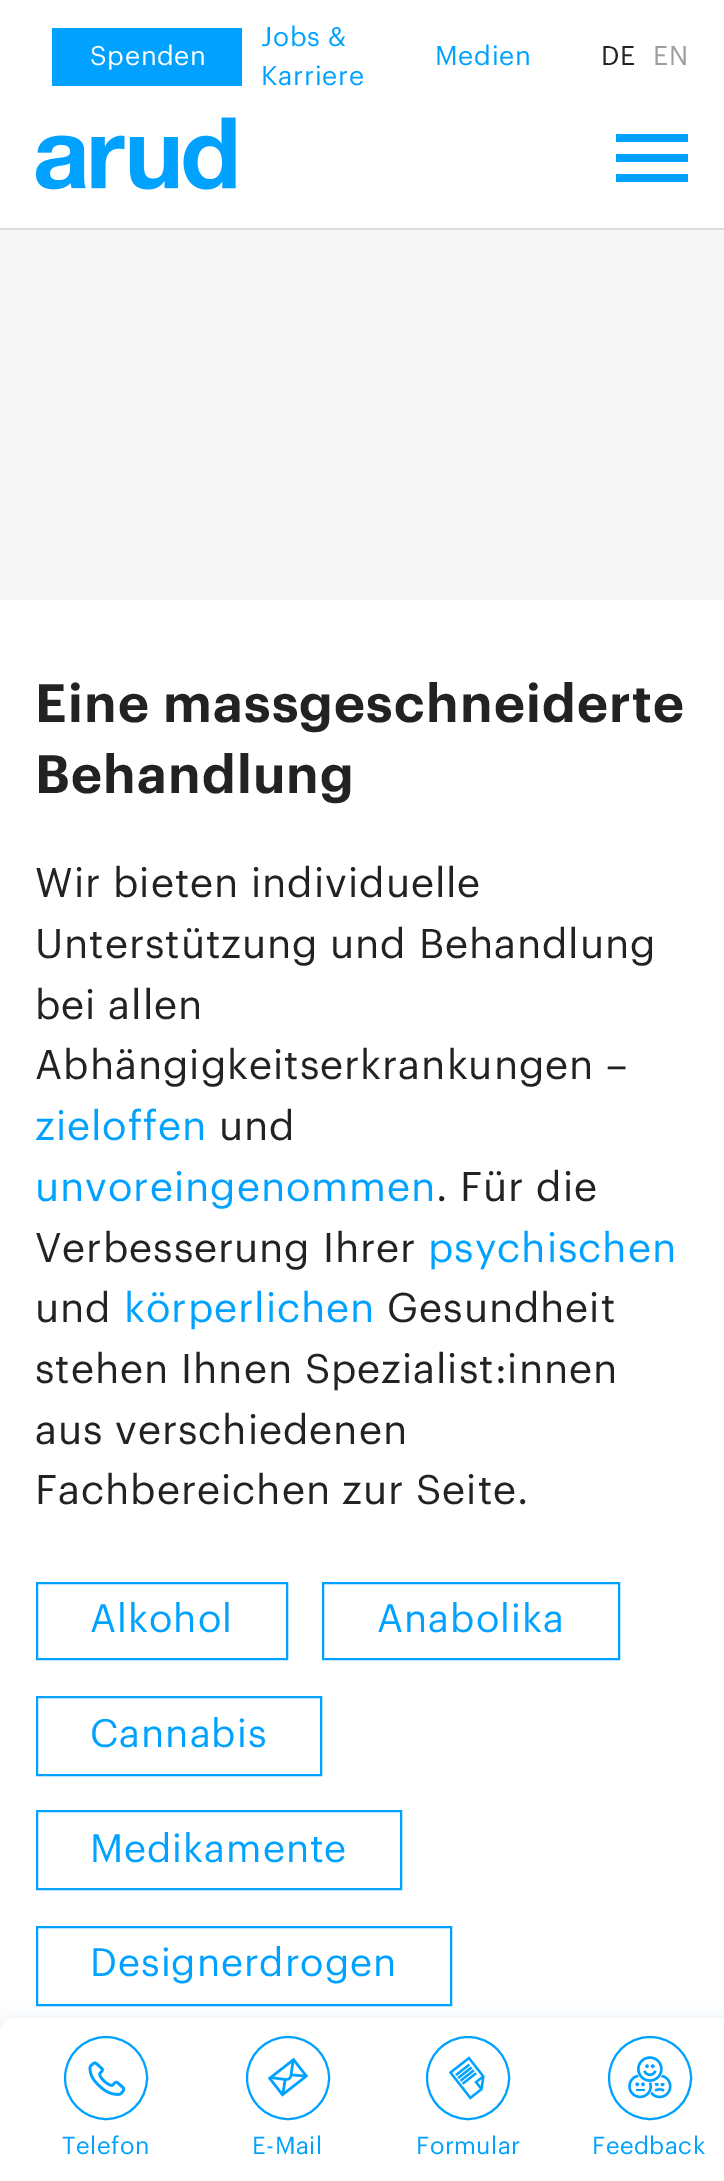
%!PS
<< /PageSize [724 2181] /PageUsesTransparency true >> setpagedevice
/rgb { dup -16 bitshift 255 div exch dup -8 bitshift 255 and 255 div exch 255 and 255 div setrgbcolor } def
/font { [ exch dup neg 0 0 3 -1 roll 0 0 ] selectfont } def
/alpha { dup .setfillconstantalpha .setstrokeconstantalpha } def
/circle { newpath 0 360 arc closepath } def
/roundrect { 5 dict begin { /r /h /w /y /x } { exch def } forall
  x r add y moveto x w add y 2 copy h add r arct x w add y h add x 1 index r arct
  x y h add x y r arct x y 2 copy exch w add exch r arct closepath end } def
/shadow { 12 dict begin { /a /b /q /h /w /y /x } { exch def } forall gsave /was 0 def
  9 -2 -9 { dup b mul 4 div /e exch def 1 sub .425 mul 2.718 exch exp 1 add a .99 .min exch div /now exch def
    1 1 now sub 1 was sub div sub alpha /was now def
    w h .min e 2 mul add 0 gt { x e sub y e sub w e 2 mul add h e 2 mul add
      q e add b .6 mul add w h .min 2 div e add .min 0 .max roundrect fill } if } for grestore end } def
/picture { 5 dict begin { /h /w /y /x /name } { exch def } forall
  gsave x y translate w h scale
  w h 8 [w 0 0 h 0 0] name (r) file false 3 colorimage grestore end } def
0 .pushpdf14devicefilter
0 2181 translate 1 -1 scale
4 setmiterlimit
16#FFFFFF rgb
0 0 724 2181 rectfill
16#DDDDDD rgb
0 228 724 2 rectfill
16#00A1FF rgb
52 28 190 58 rectfill
/Graphik-Regular 26.5 font
16#FFFFFF rgb
90 65 moveto 0.75 0 (Spenden) ashow
16#00A1FF rgb
261 46 moveto 0.75 0 (Jobs &) ashow
261 85 moveto 0.75 0 (Karriere) ashow
435 65 moveto 0.75 0 (Medien) ashow
16#222222 rgb
601 65 moveto 0.75 0 (DE) ashow
16#9D9D9C rgb
653 65 moveto 0.75 0 (EN) ashow
(pic1.raw) 36 117 200 73 picture
16#00A1FF rgb
616 154 72 8 rectfill
616 134 72 8 rectfill
616 174 72 8 rectfill
16#F7F6F6 rgb
0 230 724 370 rectfill
/Graphik-SemiBold 52.75 font
16#222222 rgb
35 722 moveto 1.3 0 (Eine massgeschneiderte) ashow
35 793 moveto 1.3 0 (Behandlung) ashow
/Graphik-Regular 40.5 font
35 897 moveto 1 0 (Wir bieten individuelle) ashow
35 958 moveto 1 0 (Unterstützung und Behandlung) ashow
35 1019 moveto 1 0 (bei allen) ashow
35 1079 moveto 1 0 (Abhängigkeitserkrankungen –) ashow
16#00A1FF rgb
35 1140 moveto 1 0 (zieloffen) ashow
16#222222 rgb
219 1140 moveto 1 0 (und) ashow
16#00A1FF rgb
35 1201 moveto 1 0 (unvoreingenommen) ashow
16#222222 rgb
436 1201 moveto 1 0 (. Für die) ashow
35 1262 moveto 1 0 (Verbesserung Ihrer) ashow
16#00A1FF rgb
428 1262 moveto 1 0 (psychischen) ashow
16#222222 rgb
35 1322 moveto 1 0 (und) ashow
16#00A1FF rgb
124 1322 moveto 1 0 (körperlichen) ashow
16#222222 rgb
387 1322 moveto 1 0 (Gesundheit) ashow
35 1383 moveto 1 0 (stehen Ihnen Spezialist:innen) ashow
35 1444 moveto 1 0 (aus verschiedenen) ashow
35 1504 moveto 1 0 (Fachbereichen zur Seite.) ashow
16#00A1FF rgb
2 setlinewidth
37 1583 250 76 rectstroke
/Graphik-Regular 38.75 font
90 1632 moveto 1 0 (Alkohol) ashow
323 1583 296 76 rectstroke
377 1632 moveto 1 0 (Anabolika) ashow
37 1697 284 78 rectstroke
90 1747 moveto 1 0 (Cannabis) ashow
37 1811 364 78 rectstroke
90 1862 moveto 1 0 (Medikamente) ashow
37 1927 414 78 rectstroke
90 1976 moveto 1 0 (Designerdrogen) ashow
16#154D7F rgb
-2 2018 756 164 14 8 0.09 shadow
16#FFFFFF rgb
14 2018 moveto 724 2018 lineto 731.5 2018 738 2024.5 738 2032 curveto 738 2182 lineto 0 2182 lineto 0 2032 lineto 0 2024.5 6.5 2018 14 2018 curveto closepath fill
16#00A1FF rgb
106 2078 41 circle stroke
(pic2.raw) 88 2061 37 35 picture
/Graphik-Regular 24 font
62 2154 moveto 0.5 0 (Telefon) ashow
288 2078 41 circle stroke
(pic3.raw) 267 2057 42 40 picture
252 2154 moveto 0.5 0 (E-Mail) ashow
468 2078 41 circle stroke
(pic4.raw) 448 2056 37 44 picture
416 2154 moveto 0.5 0 (Formular) ashow
650 2078 41 circle stroke
(pic5.raw) 628 2056 44 43 picture
592 2154 moveto 0.5 0 (Feedback) ashow
.poppdf14devicefilter showpage
